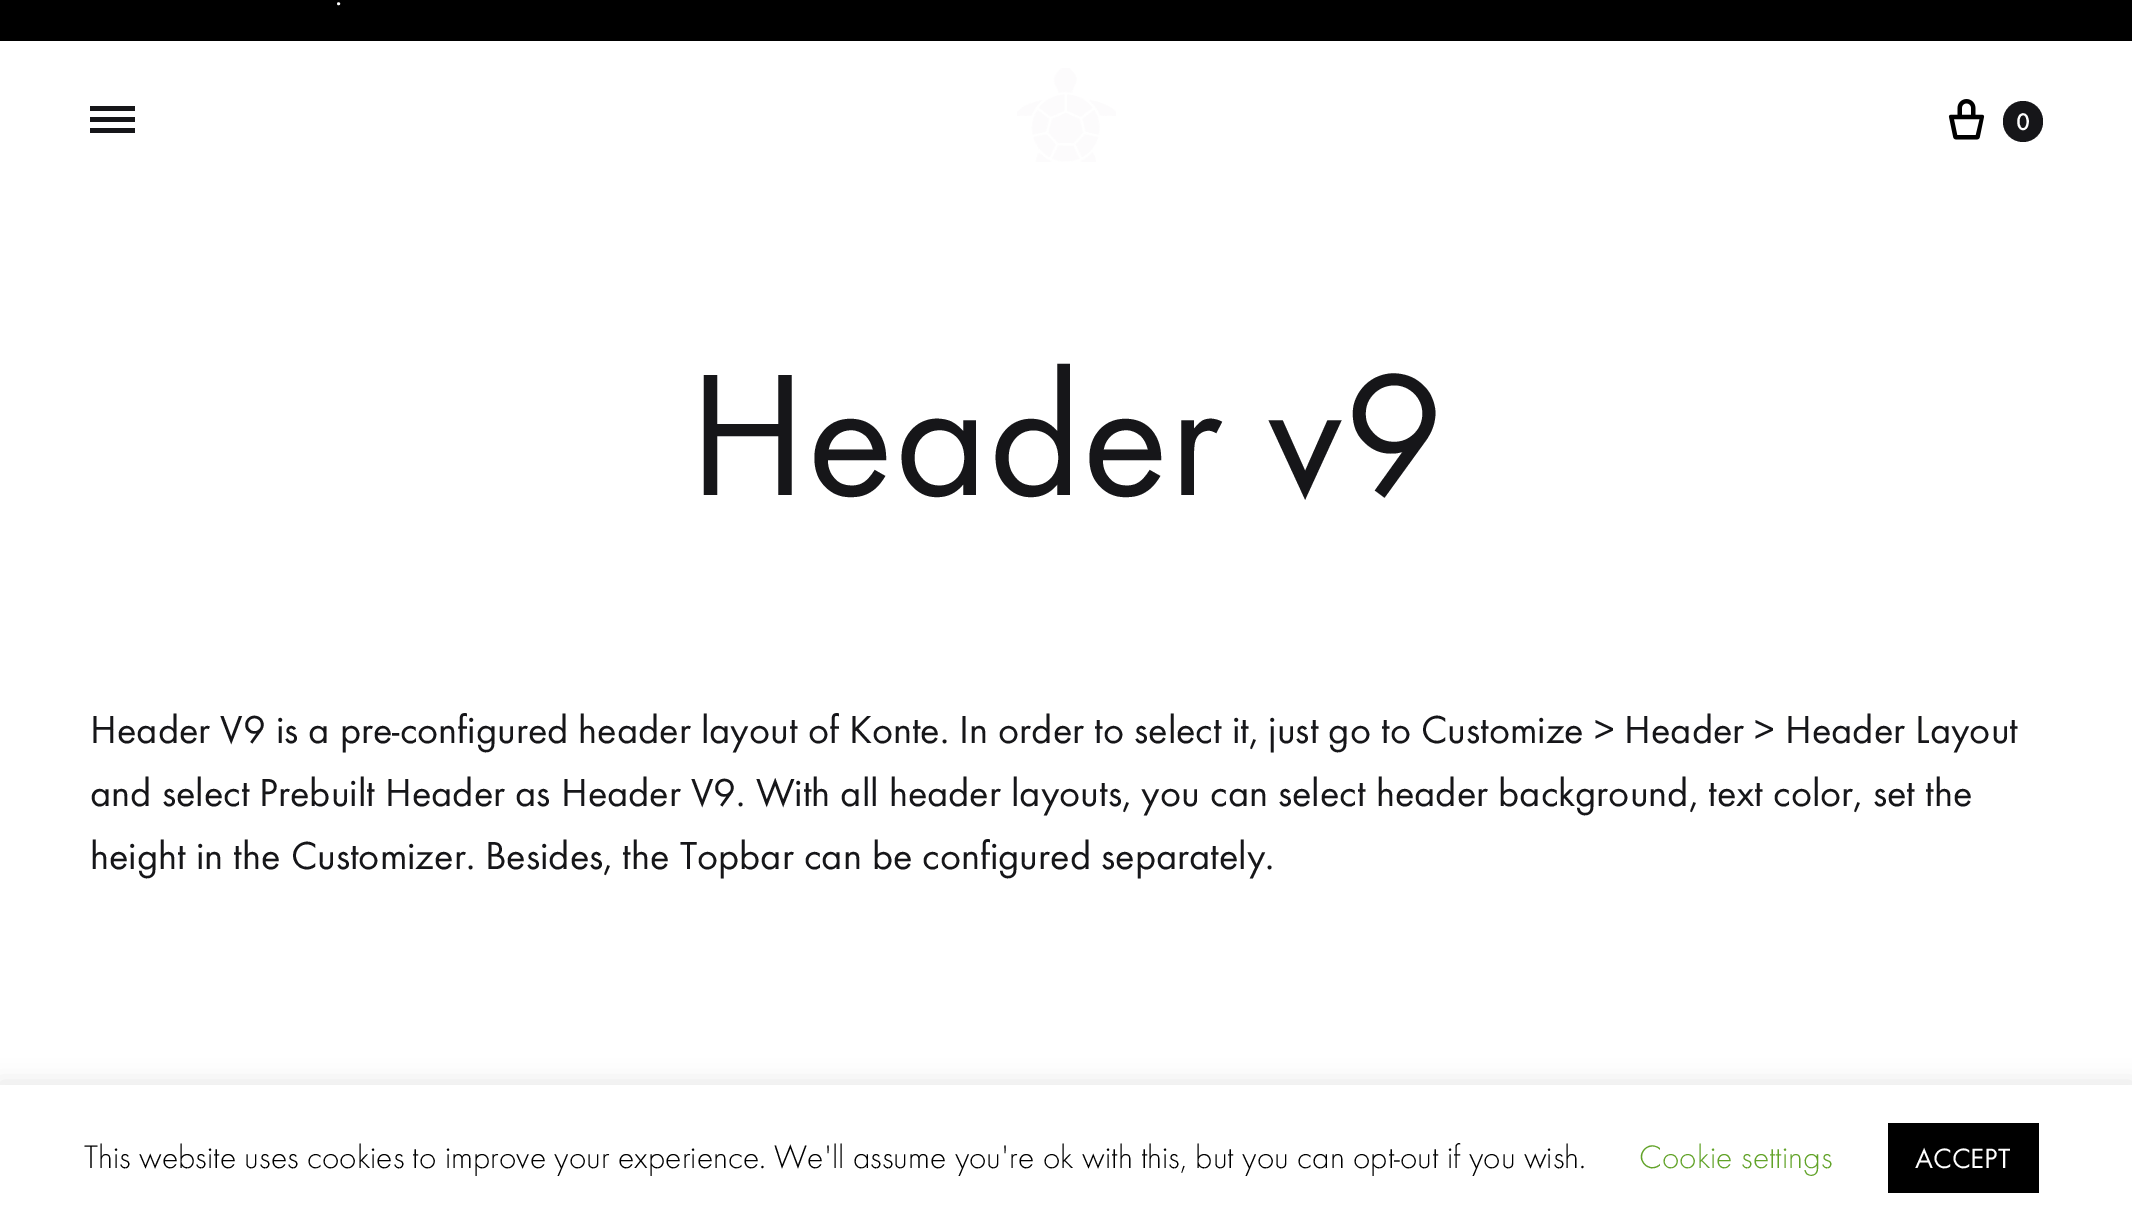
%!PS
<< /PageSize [2132 1230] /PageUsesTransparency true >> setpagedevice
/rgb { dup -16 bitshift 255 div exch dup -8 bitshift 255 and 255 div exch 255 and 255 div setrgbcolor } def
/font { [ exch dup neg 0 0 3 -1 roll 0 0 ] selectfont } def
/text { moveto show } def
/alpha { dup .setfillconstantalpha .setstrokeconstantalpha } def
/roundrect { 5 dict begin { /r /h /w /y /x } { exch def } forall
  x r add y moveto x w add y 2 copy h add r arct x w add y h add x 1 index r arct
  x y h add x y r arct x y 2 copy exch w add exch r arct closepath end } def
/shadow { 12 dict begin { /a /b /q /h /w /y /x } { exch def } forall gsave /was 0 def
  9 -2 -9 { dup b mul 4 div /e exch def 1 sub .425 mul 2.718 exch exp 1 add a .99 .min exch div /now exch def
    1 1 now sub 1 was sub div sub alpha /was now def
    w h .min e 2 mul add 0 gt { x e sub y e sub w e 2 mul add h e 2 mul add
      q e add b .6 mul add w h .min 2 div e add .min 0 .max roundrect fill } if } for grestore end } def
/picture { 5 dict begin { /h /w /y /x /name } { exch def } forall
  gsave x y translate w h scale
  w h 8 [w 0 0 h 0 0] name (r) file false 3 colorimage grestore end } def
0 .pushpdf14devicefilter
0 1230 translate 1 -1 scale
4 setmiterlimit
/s1 { /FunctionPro-Regular 32 font 16#FFFFFF rgb } def
/s2 { /FunctionPro-Medium 25 font 16#FFFFFF rgb } def
/s3 { /FunctionPro-Regular 180 font 16#161619 rgb } def
/s4 { /FunctionPro-Regular 40.5 font 16#161619 rgb } def
/s5 { /FunctionPro-Light 33.75 font 16#000000 rgb } def
/s6 { /FunctionPro-Light 33.75 font 16#62A329 rgb } def
/s7 { /FunctionPro-Regular 29 font 16#FFFFFF rgb } def
16#FFFFFF rgb
0 0 2132 1230 rectfill
16#000000 rgb
0 0 2132 41 rectfill
s1
(.) 335 5 text
16#161619 rgb
90 117 45 5 rectfill
90 106 45 5 rectfill
90 128 45 5 rectfill
(pic1.raw) 1017 68 99 94 picture
(pic2.raw) 1948 99 37 41 picture
2003 101 40 41 20 roundrect fill
s2
(0) 2016 130 text
s3
(Header v9) 688 495 text
s4
(Header V9 is a pre-configured header layout of Konte. In order to select it, just go to Customize > Header > Header Layout) 90 743 text
(and select Prebuilt Header as Header V9. With all header layouts, you can select header background, text color, set the) 90 806 text
(height in the Customizer. Besides, the Topbar can be configured separately.) 90 869 text
16#ACABAB rgb
0 1082 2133 147 0 11 0.3 shadow
16#FFFFFF rgb
0 1085 2132 145 rectfill
s5
(This website uses cookies to improve your experience. We'll assume you're ok with this, but you can opt-out if you wish.) 84 1168 text
s6
(Cookie settings) 1639 1168 text
16#000000 rgb
1888 1123 151 70 rectfill
s7
(ACCEPT) 1915 1168 text
.poppdf14devicefilter showpage
